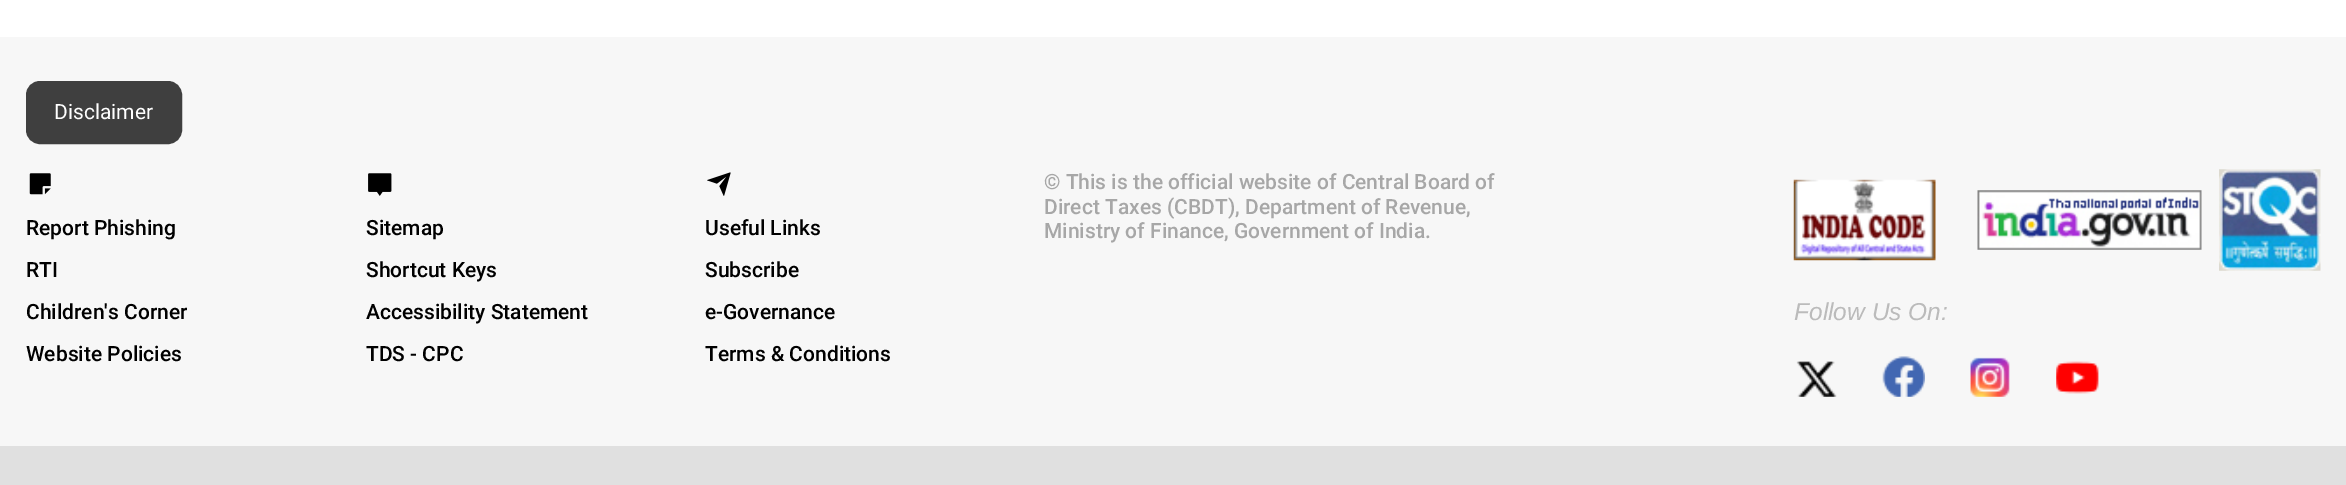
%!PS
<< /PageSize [2346 485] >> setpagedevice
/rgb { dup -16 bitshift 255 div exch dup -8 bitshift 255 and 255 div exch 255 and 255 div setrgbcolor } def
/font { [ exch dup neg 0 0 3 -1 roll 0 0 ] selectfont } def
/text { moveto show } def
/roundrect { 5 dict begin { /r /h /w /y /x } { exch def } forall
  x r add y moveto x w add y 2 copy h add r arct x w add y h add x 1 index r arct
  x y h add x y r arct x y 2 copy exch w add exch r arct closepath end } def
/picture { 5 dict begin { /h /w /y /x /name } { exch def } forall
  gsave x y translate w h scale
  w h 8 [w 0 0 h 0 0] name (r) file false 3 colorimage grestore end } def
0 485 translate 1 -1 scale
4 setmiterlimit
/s1 { /Roboto-Regular 21 font 16#FFFFFF rgb } def
/s2 { /Roboto-Medium 21 font 16#A7A7A7 rgb } def
/s3 { /Roboto-Medium 21 font 16#000000 rgb } def
/s4 { /LiberationSans-Italic 24.5 font 16#BBBBBB rgb } def
16#FFFFFF rgb
0 0 2346 485 rectfill
16#F7F7F7 rgb
0 37 2346 409 rectfill
16#3F3F3F rgb
27 82 154 61 13 roundrect gsave fill grestore
2 setlinewidth
stroke
s1
(Disclaimer) 54 119 text
s2
(© This is the official website of Central Board of) 1044 189 text
(Direct Taxes \(CBDT\), Department of Revenue,) 1044 214 text
(Ministry of Finance, Government of India.) 1044 238 text
(pic1.raw) 29 173 22 22 picture
s3
(Report Phishing) 26 235 text
(RTI) 26 277 text
(Children's Corner) 26 319 text
(Website Policies) 26 361 text
(pic2.raw) 368 173 24 23 picture
(Sitemap) 366 235 text
(Shortcut Keys) 366 277 text
(Accessibility Statement) 366 319 text
(TDS - CPC) 366 361 text
(pic3.raw) 707 172 24 24 picture
(Useful Links) 705 235 text
(Subscribe) 705 277 text
(e-Governance) 705 319 text
(Terms & Conditions) 705 361 text
(pic4.raw) 1793 179 143 82 picture
(pic5.raw) 1977 190 225 60 picture
(pic6.raw) 2219 169 102 102 picture
s4
(Follow Us On:) 1794 320 text
(pic7.raw) 1796 361 41 36 picture
(pic8.raw) 1882 356 43 41 picture
(pic9.raw) 1970 357 40 40 picture
(pic10.raw) 2056 361 43 33 picture
16#E0E0E0 rgb
0 446 2346 39 rectfill
showpage
